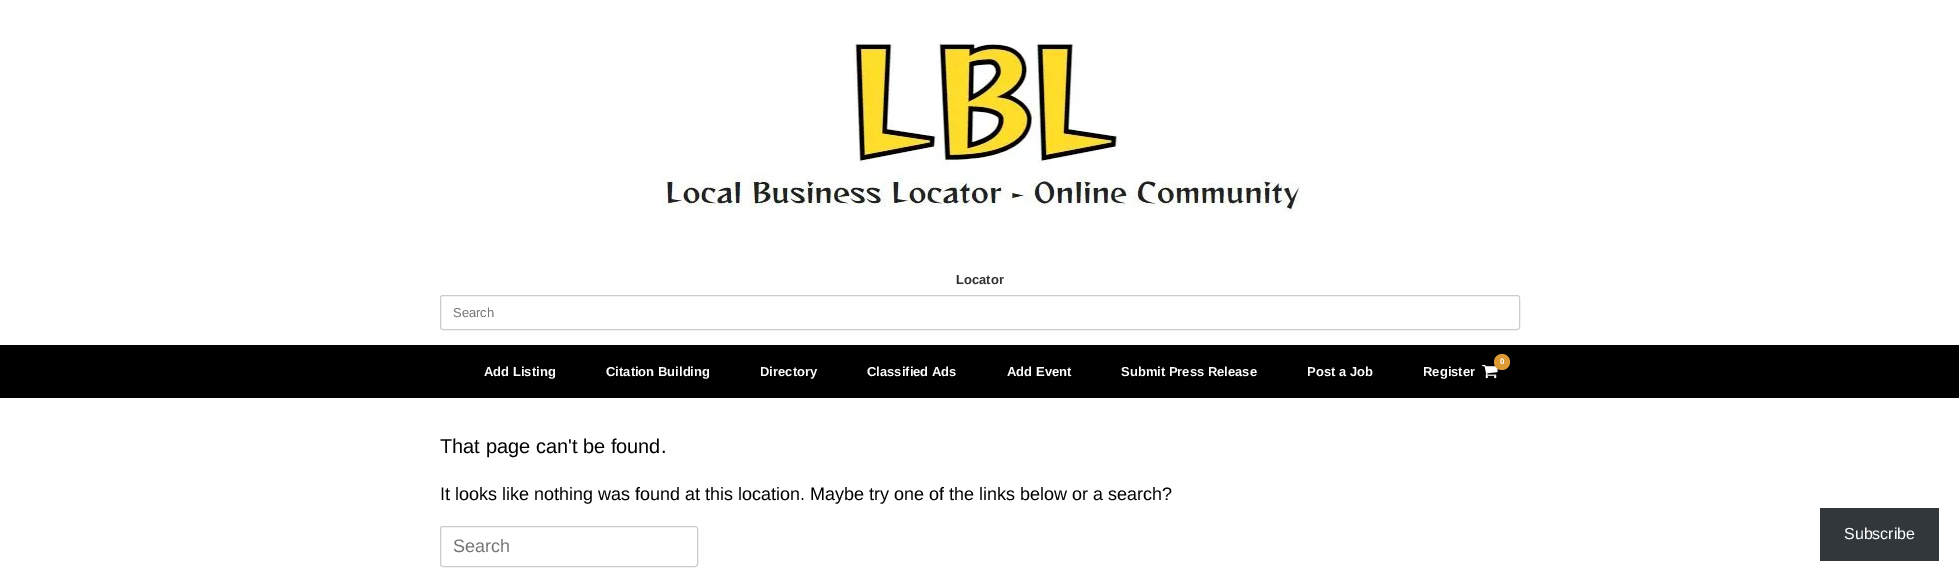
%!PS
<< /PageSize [1959 581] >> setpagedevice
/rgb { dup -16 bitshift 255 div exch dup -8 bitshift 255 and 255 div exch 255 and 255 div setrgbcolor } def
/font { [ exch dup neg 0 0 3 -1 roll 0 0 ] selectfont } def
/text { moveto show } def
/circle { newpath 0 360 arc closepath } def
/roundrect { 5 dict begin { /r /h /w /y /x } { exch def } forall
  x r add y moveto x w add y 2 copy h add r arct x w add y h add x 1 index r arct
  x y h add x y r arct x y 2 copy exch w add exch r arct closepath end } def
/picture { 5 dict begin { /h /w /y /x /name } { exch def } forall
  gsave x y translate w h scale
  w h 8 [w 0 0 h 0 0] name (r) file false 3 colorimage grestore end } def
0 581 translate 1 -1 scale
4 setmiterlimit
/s1 { /LiberationSans-Bold 13 font 16#333333 rgb } def
/s2 { /LiberationSans-Regular 13 font 16#757575 rgb } def
/s3 { /LiberationSans-Bold 8 font 16#FFFFFF rgb } def
/s4 { /LiberationSans-Bold 13 font 16#FFFFFF rgb } def
/s5 { /LiberationSans-Regular 20 font 16#000000 rgb } def
/s6 { /LiberationSans-Regular 18 font 16#000000 rgb } def
/s7 { /LiberationSans-Regular 18 font 16#757575 rgb } def
/s8 { /LiberationSans-Regular 16 font 16#FFFFFF rgb } def
16#FFFFFF rgb
0 0 1959 581 rectfill
(pic1.raw) 662 43 644 170 picture
s1
(Locator) 956 284 text
16#CCCCCC rgb
440.5 295.5 1079 34 2.5 roundrect stroke
s2
(Search) 453 317 text
16#000000 rgb
0 345 1959 53 rectfill
(pic2.raw) 1482 365 16 14 picture
16#DD9933 rgb
1502 362 8 circle fill
s3
(0) 1500 364 text
s4
(Add Listing) 484 376 text
(Citation Building) 606 376 text
(Directory) 760 376 text
(Classified Ads) 867 376 text
(Add Event) 1007 376 text
(Submit Press Release) 1121 376 text
(Post a Job) 1307 376 text
(Register) 1423 376 text
s5
(That page can't be found.) 440 453 text
s6
(It looks like nothing was found at this location. Maybe try one of the links below or a search?) 440 500 text
16#CCCCCC rgb
440.5 526.5 257 40 2.5 roundrect stroke
s7
(Search) 453 552 text
16#32373C rgb
1820 508 119 53 rectfill
s8
(Subscribe) 1844 539 text
showpage
